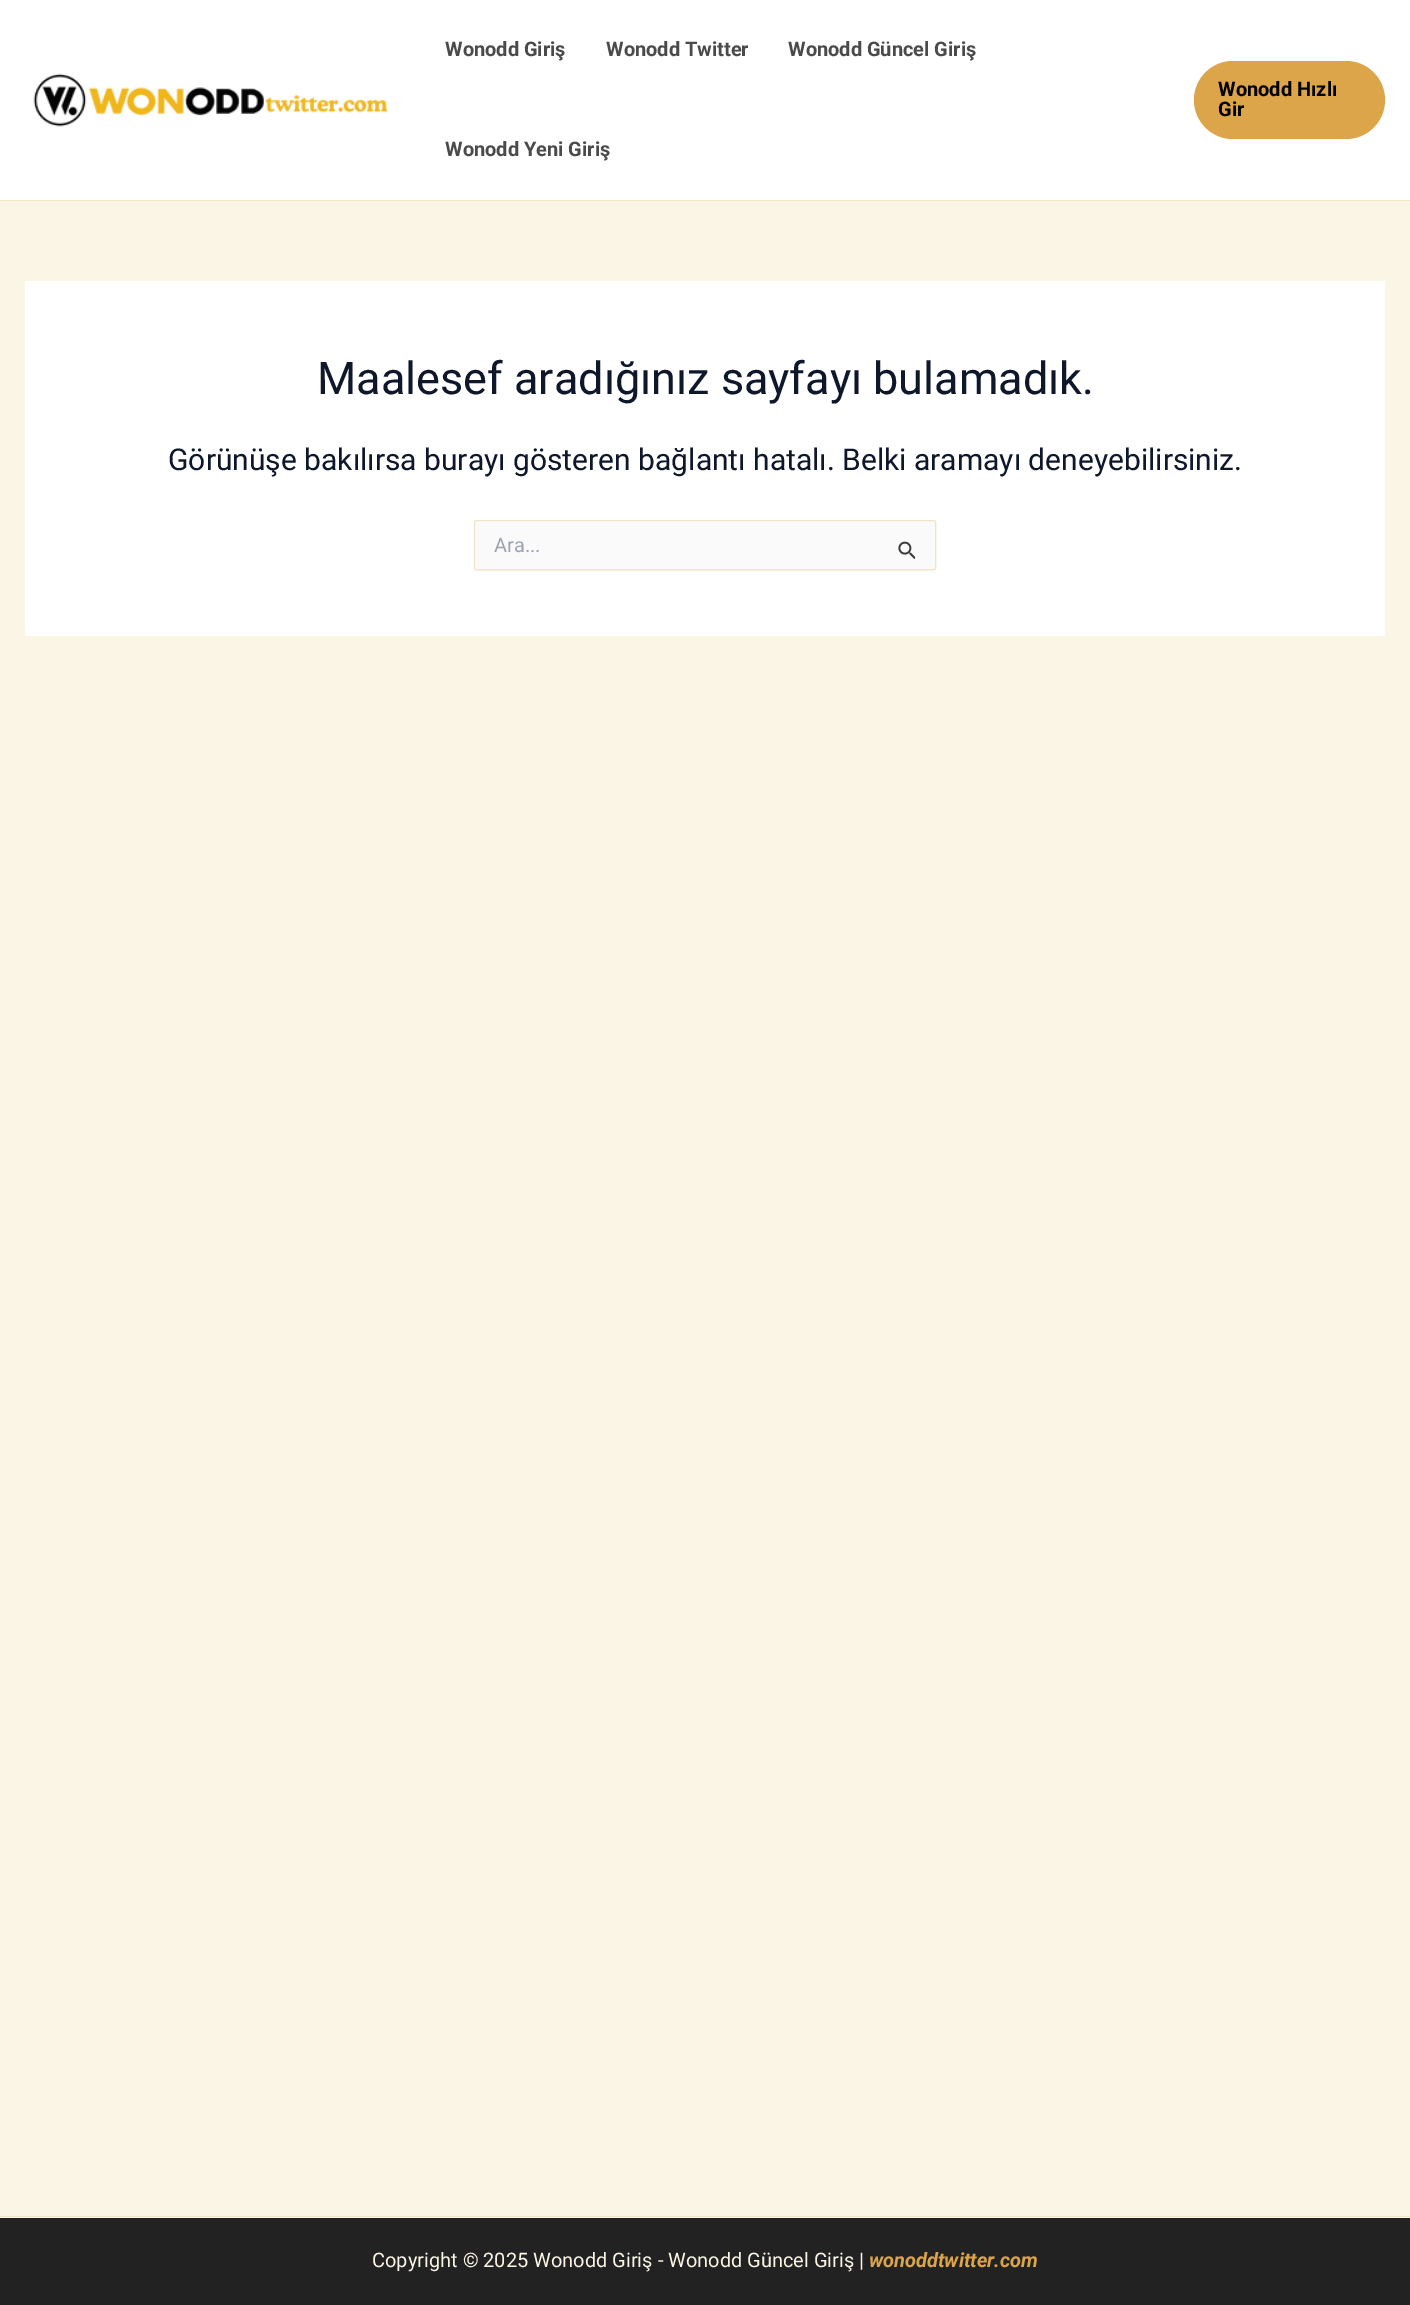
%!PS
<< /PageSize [1410 2305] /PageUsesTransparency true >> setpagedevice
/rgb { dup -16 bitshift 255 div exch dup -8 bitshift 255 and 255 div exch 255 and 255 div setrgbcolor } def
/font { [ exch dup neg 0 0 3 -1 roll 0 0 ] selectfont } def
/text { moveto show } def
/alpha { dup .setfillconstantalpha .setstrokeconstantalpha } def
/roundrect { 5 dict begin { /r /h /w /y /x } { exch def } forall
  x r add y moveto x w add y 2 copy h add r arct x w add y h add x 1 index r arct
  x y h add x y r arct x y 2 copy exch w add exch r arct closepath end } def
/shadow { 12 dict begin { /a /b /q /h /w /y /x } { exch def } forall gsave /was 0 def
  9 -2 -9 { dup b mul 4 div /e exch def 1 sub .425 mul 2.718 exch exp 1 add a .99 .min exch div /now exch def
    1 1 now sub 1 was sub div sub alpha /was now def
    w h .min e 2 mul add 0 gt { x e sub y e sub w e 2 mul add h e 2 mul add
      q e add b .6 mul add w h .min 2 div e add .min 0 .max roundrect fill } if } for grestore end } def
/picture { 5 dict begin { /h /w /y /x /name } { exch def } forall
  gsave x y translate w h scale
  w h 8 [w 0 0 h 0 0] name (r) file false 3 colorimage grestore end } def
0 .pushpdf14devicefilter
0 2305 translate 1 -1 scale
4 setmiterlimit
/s1 { /Roboto-Bold 20 font 16#4A4A4A rgb } def
/s2 { /Roboto-Bold 20 font 16#000000 rgb } def
/s3 { /Roboto-Regular 45 font 16#0F172A rgb } def
/s4 { /Roboto-Regular 30 font 16#0F172A rgb } def
/s5 { /Roboto-Regular 20 font 16#9CA3AF rgb } def
/s6 { /Roboto-Regular 20 font 16#FAF5E5 rgb } def
/s7 { /Roboto-BoldItalic 20 font 16#DCA54A rgb } def
16#FAF5E5 rgb
0 0 1410 2305 rectfill
16#FFFFFF rgb
0 0 1410 200 rectfill
16#F0E6C5 rgb
0 200 1410 1 rectfill
(pic1.raw) 33 73 355 54 picture
s1
(Wonodd Giriş) 445 56 text
(Wonodd Twitter) 606 56 text
(Wonodd Güncel Giriş) 788 56 text
(Wonodd Yeni Giriş) 445 156 text
16#DCA54A rgb
1194 61 191 78 39 roundrect fill
s2
(Wonodd Hızlı) 1218 96 text
(Gir) 1218 116 text
16#FFFFFF rgb
25 281 1360 355 rectfill
s3
(Maalesef aradığınız sayfayı bulamadık.) 317 394 text
s4
(Görünüşe bakılırsa burayı gösteren bağlantı hatalı. Belki aramayı deneyebilirsiniz.) 168 470 text
16#000000 rgb
474 521 462 50 2.5 1 0.05 shadow
16#FAFAFA rgb
474.5 520.5 461 49 2 roundrect gsave fill grestore
16#F0E6C5 rgb
stroke
s5
(Ara...) 494 552 text
(pic2.raw) 898 541 17 18 picture
16#222222 rgb
0 2218 1410 87 rectfill
16#F0E6C5 rgb
0 2216 1410 1 rectfill
s6
(Copyright © 2025 Wonodd Giriş - Wonodd Güncel Giriş |) 372 2267 text
s7
(wonoddtwitter.com) 869 2267 text
.poppdf14devicefilter showpage
